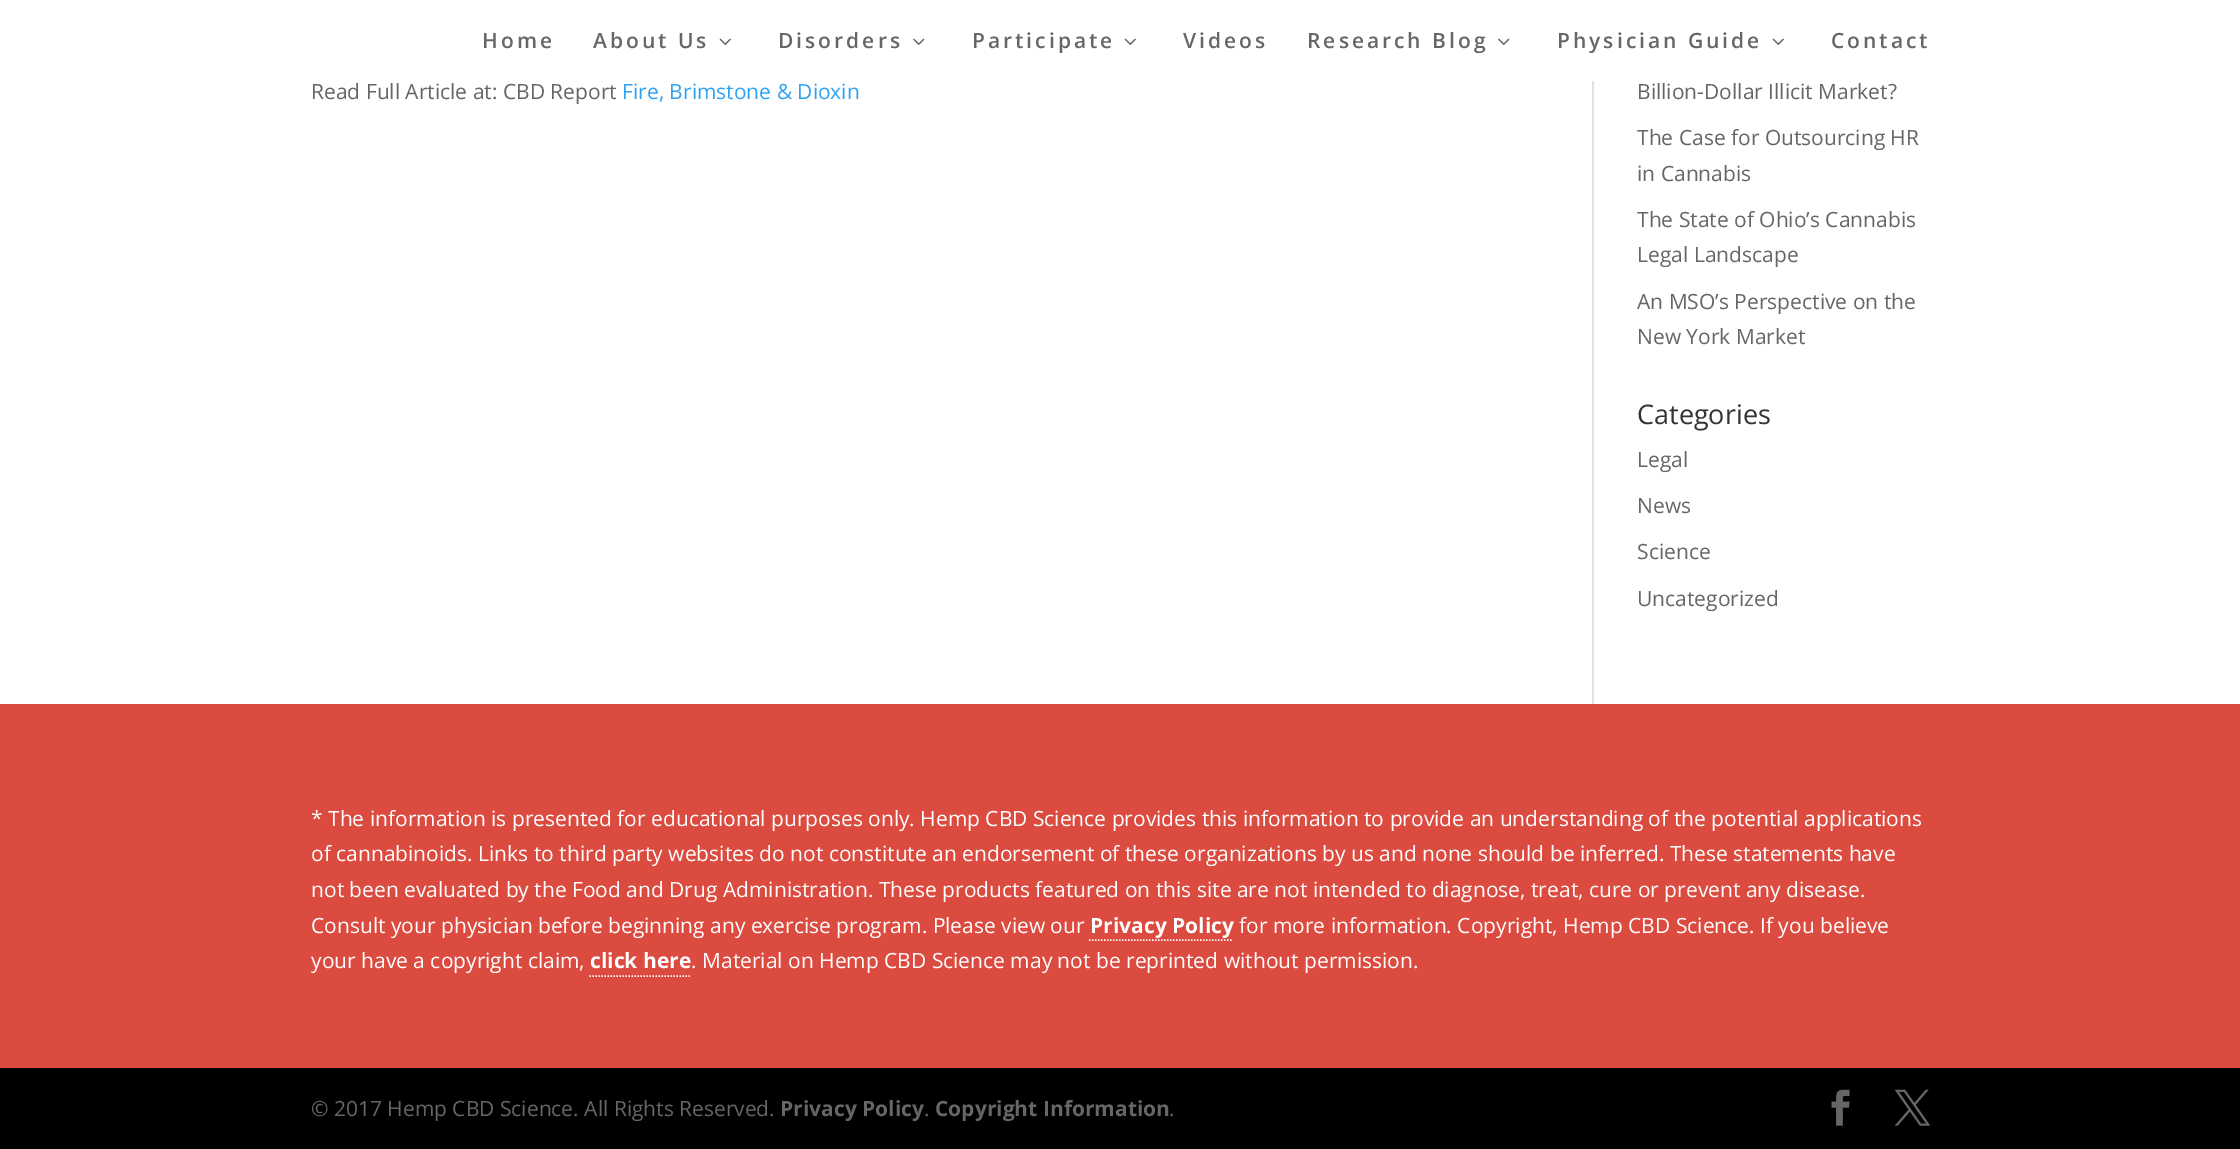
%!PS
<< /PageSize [2240 1149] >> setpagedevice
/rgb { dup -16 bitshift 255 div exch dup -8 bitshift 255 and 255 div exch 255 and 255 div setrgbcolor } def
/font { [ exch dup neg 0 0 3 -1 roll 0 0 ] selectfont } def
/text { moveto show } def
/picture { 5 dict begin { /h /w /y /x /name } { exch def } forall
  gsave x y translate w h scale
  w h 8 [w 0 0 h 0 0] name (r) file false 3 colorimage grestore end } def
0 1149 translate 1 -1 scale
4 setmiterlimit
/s1 { /OpenSans-Regular 21 font 16#666666 rgb } def
/s2 { /OpenSans-Regular 21 font 16#2EA3F2 rgb } def
/s3 { /OpenSans-Regular 27 font 16#333333 rgb } def
/s4 { /OpenSans-Regular 21 font 16#FFFFFF rgb } def
/s5 { /OpenSans-Bold 21 font 16#FFFFFF rgb } def
/s6 { /OpenSans-Bold 21 font 16#666666 rgb } def
16#FFFFFF rgb
0 0 2240 1149 rectfill
/OpenSans-SemiBold 21 font
16#666666 rgb
482 48 moveto 3 0 (Home) ashow
593 48 moveto 3 0 (About Us) ashow
(pic1.raw) 719 38 12 7 picture
778 48 moveto 3 0 (Disorders) ashow
(pic2.raw) 913 38 12 7 picture
972 48 moveto 3 0 (Participate) ashow
(pic1.raw) 1124 38 12 7 picture
1183 48 moveto 3 0 (Videos) ashow
1307 48 moveto 3 0 (Research Blog) ashow
(pic2.raw) 1498 38 12 7 picture
1557 48 moveto 3 0 (Physician Guide) ashow
(pic1.raw) 1772 38 12 7 picture
1831 48 moveto 3 0 (Contact) ashow
16#E2E2E2 rgb
1592 81 2 623 rectfill
s1
(Read Full Article at: CBD Report) 311 99 text
s2
(Fire, Brimstone & Dioxin) 622 99 text
s1
(Billion-Dollar Illicit Market?) 1637 99 text
(The Case for Outsourcing HR) 1637 145 text
(in Cannabis) 1637 181 text
(The State of Ohio’s Cannabis) 1637 227 text
(Legal Landscape) 1637 262 text
(An MSO’s Perspective on the) 1637 309 text
(New York Market) 1637 344 text
s3
(Categories) 1637 424 text
s1
(Legal) 1637 467 text
(News) 1637 513 text
(Science) 1637 559 text
(Uncategorized) 1637 606 text
16#DB4B3F rgb
0 704 2240 364 rectfill
s4
(* The information is presented for educational purposes only. Hemp CBD Science provides this information to provide an understanding of the potential applications) 311 826 text
(of cannabinoids. Links to third party websites do not constitute an endorsement of these organizations by us and none should be inferred. These statements have) 311 861 text
(not been evaluated by the Food and Drug Administration. These products featured on this site are not intended to diagnose, treat, cure or prevent any disease.) 311 897 text
(Consult your physician before beginning any exercise program. Please view our) 311 933 text
s5
(Privacy Policy) 1090 933 text
1.5 setlinewidth
[1.5 1.5] 0 setdash
1089 940 moveto 1233 940 lineto stroke
s4
(for more information. Copyright, Hemp CBD Science. If you believe) 1239 933 text
(your have a copyright claim,) 311 968 text
s5
(click here) 590 968 text
589.5 976 moveto 691.5 976 lineto stroke
s4
(. Material on Hemp CBD Science may not be reprinted without permission.) 691 968 text
16#000000 rgb
0 1068 2240 81 rectfill
s1
(© 2017 Hemp CBD Science. All Rights Reserved.) 311 1116 text
s6
(Privacy Policy) 780 1116 text
s1
(.) 924 1116 text
s6
(Copyright Information) 935 1116 text
s1
(.) 1169 1116 text
(pic3.raw) 1831 1089 19 37 picture
(pic4.raw) 1894 1089 37 37 picture
showpage
